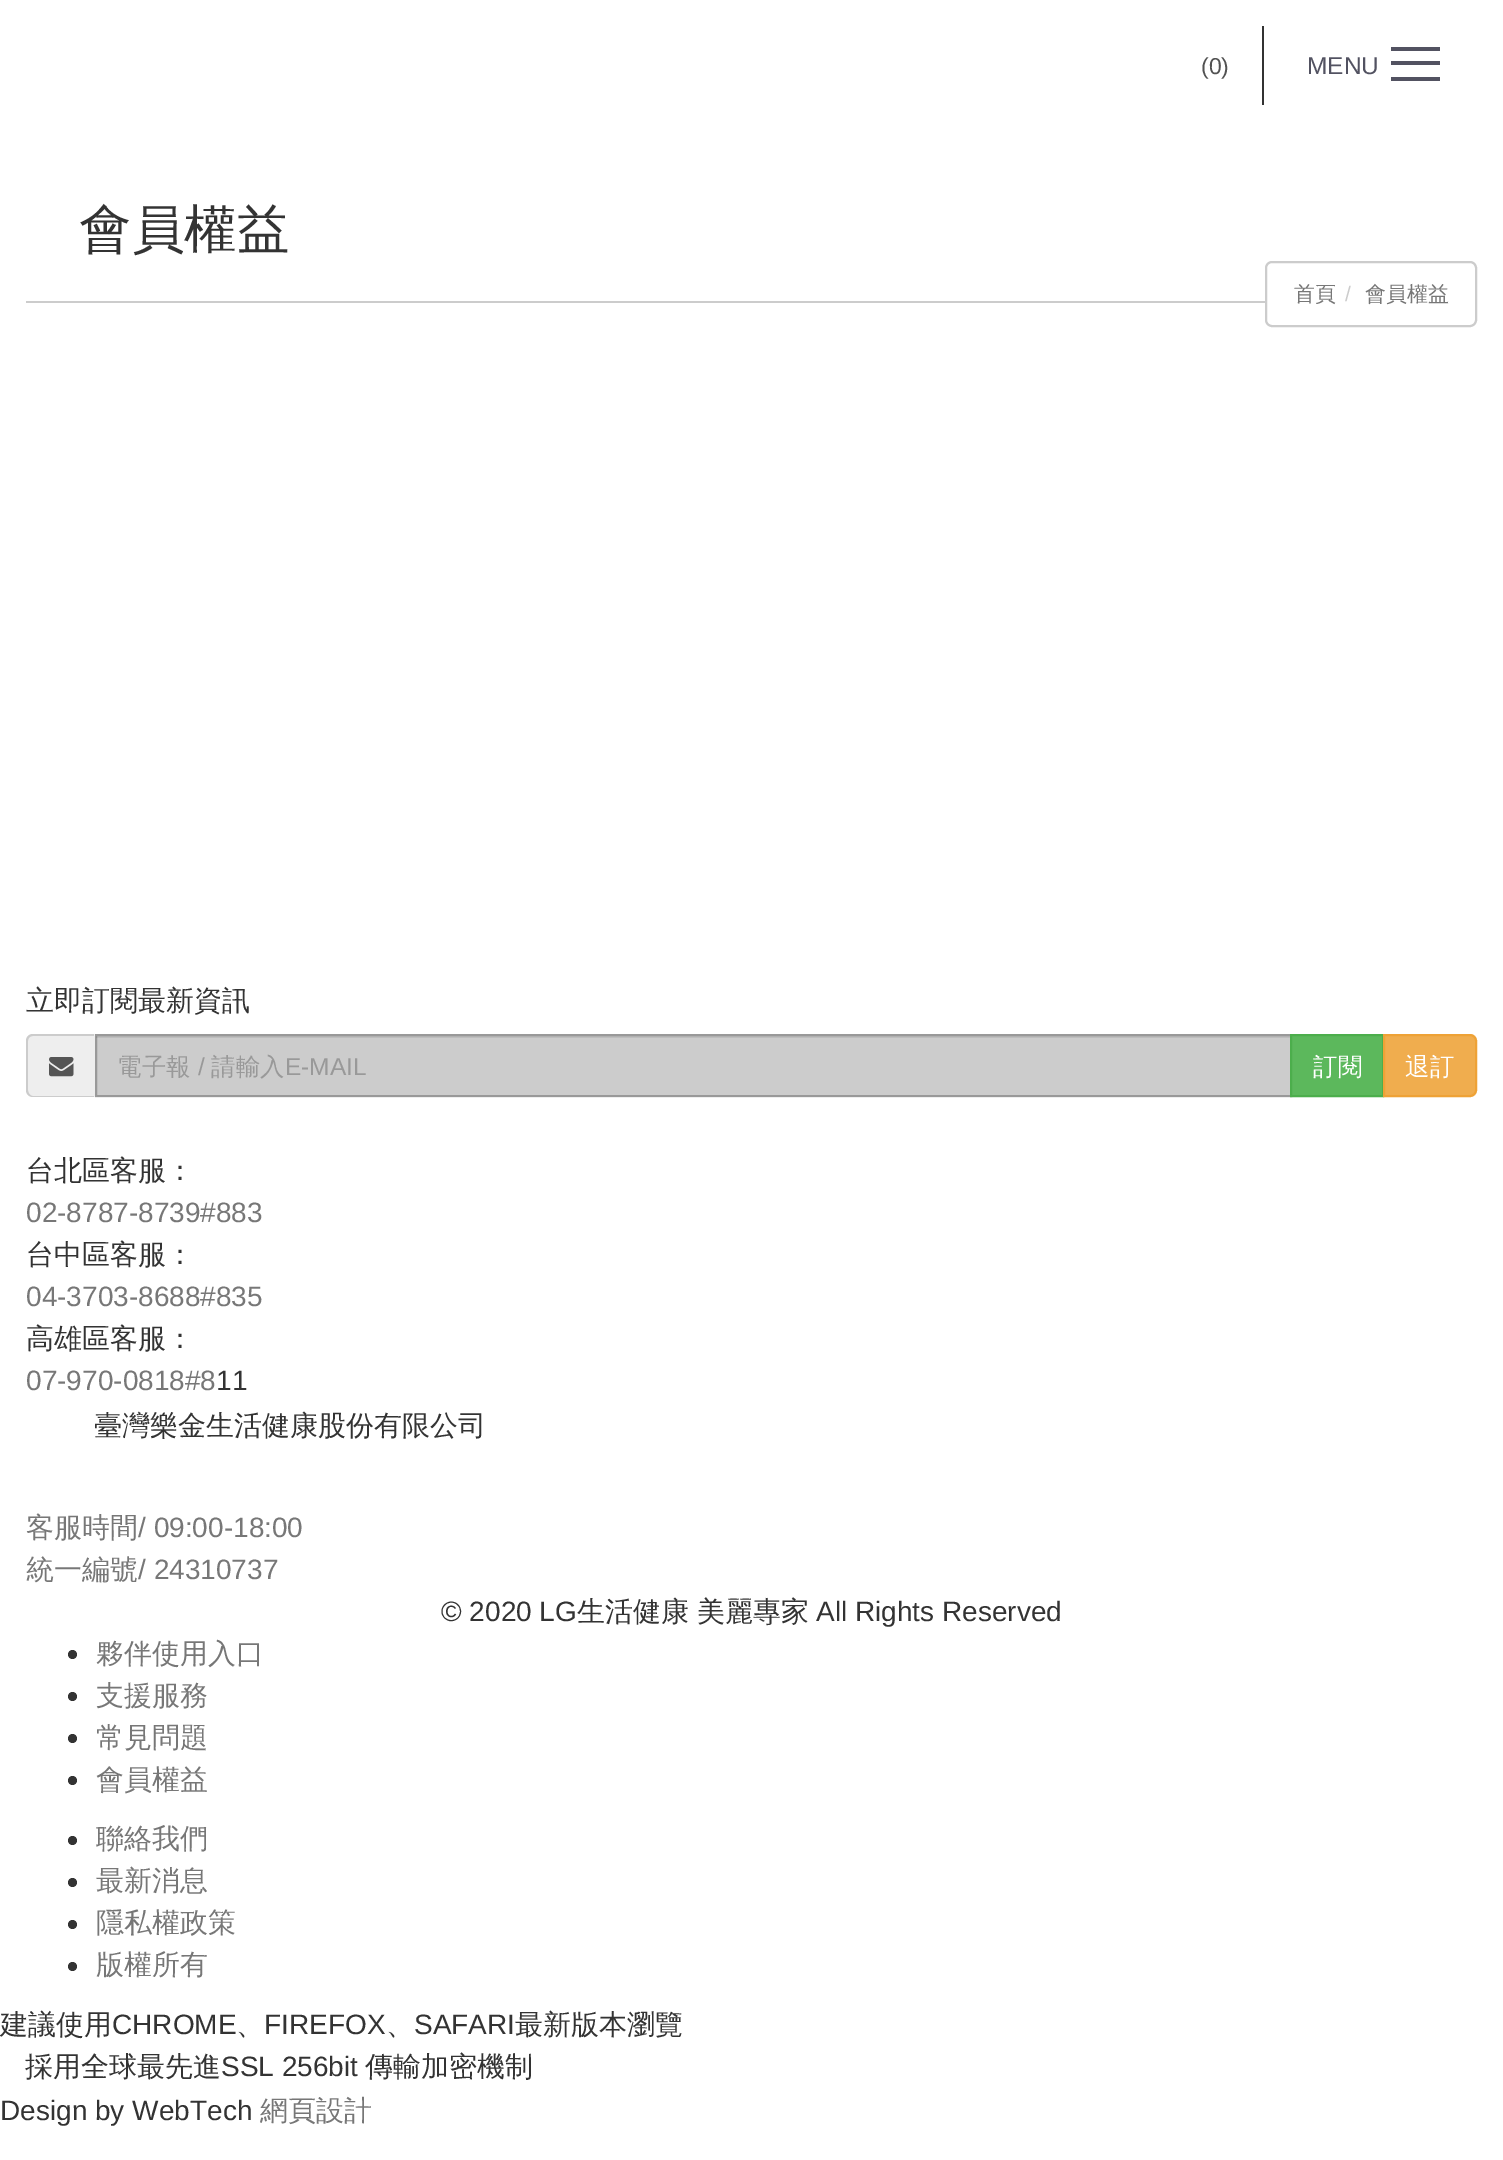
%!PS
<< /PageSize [1503 2160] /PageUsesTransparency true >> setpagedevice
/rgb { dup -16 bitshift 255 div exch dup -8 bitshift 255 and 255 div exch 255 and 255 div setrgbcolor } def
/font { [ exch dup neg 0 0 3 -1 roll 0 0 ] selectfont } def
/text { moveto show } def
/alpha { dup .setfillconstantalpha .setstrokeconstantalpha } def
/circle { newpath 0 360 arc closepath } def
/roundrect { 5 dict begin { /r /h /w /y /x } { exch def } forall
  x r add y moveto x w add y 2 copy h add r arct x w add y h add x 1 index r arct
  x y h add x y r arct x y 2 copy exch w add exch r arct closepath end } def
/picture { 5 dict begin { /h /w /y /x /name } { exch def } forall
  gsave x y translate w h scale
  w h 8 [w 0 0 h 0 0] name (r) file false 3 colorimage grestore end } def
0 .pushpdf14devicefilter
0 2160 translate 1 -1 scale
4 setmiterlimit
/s1 { /LiberationSans-Regular 23 font 16#525252 rgb } def
/s2 { /LiberationSans-Regular 24.5 font 16#525261 rgb } def
/s3 { /WenQuanYiZenHei-Medium 52.5 font 16#333333 rgb } def
/s4 { /WenQuanYiZenHei-Medium 21 font 16#777777 rgb } def
/s5 { /LiberationSans-Regular 21 font 16#CCCCCC rgb } def
/s6 { /WenQuanYiZenHei-Medium 28 font 16#333333 rgb } def
/s7 { /WenQuanYiZenHei-Medium 24.5 font 16#999999 rgb } def
/s8 { /LiberationSans-Regular 24.5 font 16#999999 rgb } def
/s9 { /WenQuanYiZenHei-Medium 24.5 font 16#FFFFFF rgb } def
/s10 { /LiberationSans-Regular 28 font 16#777777 rgb } def
/s11 { /LiberationSans-Regular 28 font 16#333333 rgb } def
/s12 { /WenQuanYiZenHei-Medium 28 font 16#777777 rgb } def
16#FFFFFF rgb
0 0 1503 2160 rectfill
s1
(\(0\)) 1201 74 text
16#333333 rgb
1262 26 2 79 rectfill
16#525261 rgb
1391 47 49 4 rectfill
s2
(MENU) 1307 74 text
1391 61 49 4 rectfill
1391 77 49 4 rectfill
16#CCCCCC rgb
26 301 1239 2 rectfill
s3
(會員權益) 79 247 text
16#CCCCCC rgb
2 setlinewidth
1266 262 210 64 6 roundrect stroke
s4
(首頁) 1294 301 text
s5
(/) 1345 301 text
s4
(會員權益) 1365 301 text
s6
(立即訂閱最新資訊) 26 1010 text
16#EEEEEE rgb
33 1034 moveto 95 1034 lineto 95 1097 lineto 33 1097 lineto 29 1097 26 1094 26 1090 curveto 26 1041 lineto 26 1037 29 1034 33 1034 curveto closepath fill
16#CCCCCC rgb
33 1034 moveto 94 1034 lineto 94 1097 lineto 33 1097 lineto 29 1097 26 1094 26 1090 curveto 26 1041 lineto 26 1037 29 1034 33 1034 curveto closepath 33 1036 moveto 94 1036 lineto 94 1096 lineto 33 1096 lineto 30 1096 28 1093 28 1090 curveto 28 1041 lineto 28 1038 30 1036 33 1036 curveto closepath eofill
(pic1.raw) 49 1057 25 20 picture
95 1034 1195 63 rectfill
16#BDBDBD rgb
96 1036 1194 2 rectfill
0.25 alpha
16#000000 rgb
96 1035 1195 61 rectstroke
1 alpha
s7
(電子報) 117 1075 text
s8
(/) 198 1075 text
s7
(請輸入) 211 1075 text
s8
(E-MAIL) 285 1075 text
16#5CB85C rgb
1291 1035 moveto 1383 1035 lineto 1383 1096 lineto 1291 1096 lineto closepath gsave fill grestore
16#4CAE4C rgb
stroke
s9
(訂閱) 1313 1075 text
16#F0AD4E rgb
1384 1035 moveto 1470 1035 lineto 1473.5 1035 1476 1037.5 1476 1041 curveto 1476 1090 lineto 1476 1093.5 1473.5 1096 1470 1096 curveto 1384 1096 lineto closepath gsave fill grestore
16#EEA236 rgb
stroke
s9
(退訂) 1405 1075 text
s6
(台北區客服：) 26 1180 text
s10
(02-8787-8739#883) 26 1222 text
s6
(台中區客服：) 26 1264 text
s10
(04-3703-8688#835) 26 1306 text
s6
(高雄區客服：) 26 1348 text
s10
(07-970-0818#8) 26 1390 text
s11
(11) 216 1390 text
s6
(臺灣樂金生活健康股份有限公司) 94 1435 text
s12
(客服時間) 26 1537 text
s10
(/ 09:00-18:00) 138 1537 text
s12
(統一編號) 26 1579 text
s10
(/ 24310737) 138 1579 text
s11
(© 2020 LG) 441 1621 text
s6
(生活健康) 577 1621 text
(美麗專家) 697 1621 text
s11
(All Rights Reserved) 816 1621 text
72.5 1654.5 4.5 circle fill
s12
(夥伴使用入口) 96 1663 text
16#333333 rgb
72.5 1696.5 4.5 circle fill
s12
(支援服務) 96 1705 text
16#333333 rgb
72.5 1738.5 4.5 circle fill
s12
(常見問題) 96 1747 text
16#333333 rgb
72.5 1780.5 4.5 circle fill
s12
(會員權益) 96 1789 text
16#333333 rgb
72.5 1840.5 4.5 circle fill
s12
(聯絡我們) 96 1848 text
16#333333 rgb
72.5 1882.5 4.5 circle fill
s12
(最新消息) 96 1890 text
16#333333 rgb
72.5 1924.5 4.5 circle fill
s12
(隱私權政策) 96 1932 text
16#333333 rgb
72.5 1966.5 4.5 circle fill
s12
(版權所有) 96 1974 text
s6
(建議使用) 0 2034 text
s11
(CHROME) 112 2034 text
s6
(、) 236 2034 text
s11
(FIREFOX) 264 2034 text
s6
(、) 386 2034 text
s11
(SAFARI) 414 2034 text
s6
(最新版本瀏覽) 515 2034 text
(採用全球最先進) 25 2076 text
s11
(SSL 256bit) 221 2076 text
s6
(傳輸加密機制) 365 2076 text
s11
(Design by WebTech) 0 2120 text
s12
(網頁設計) 260 2120 text
.poppdf14devicefilter showpage
